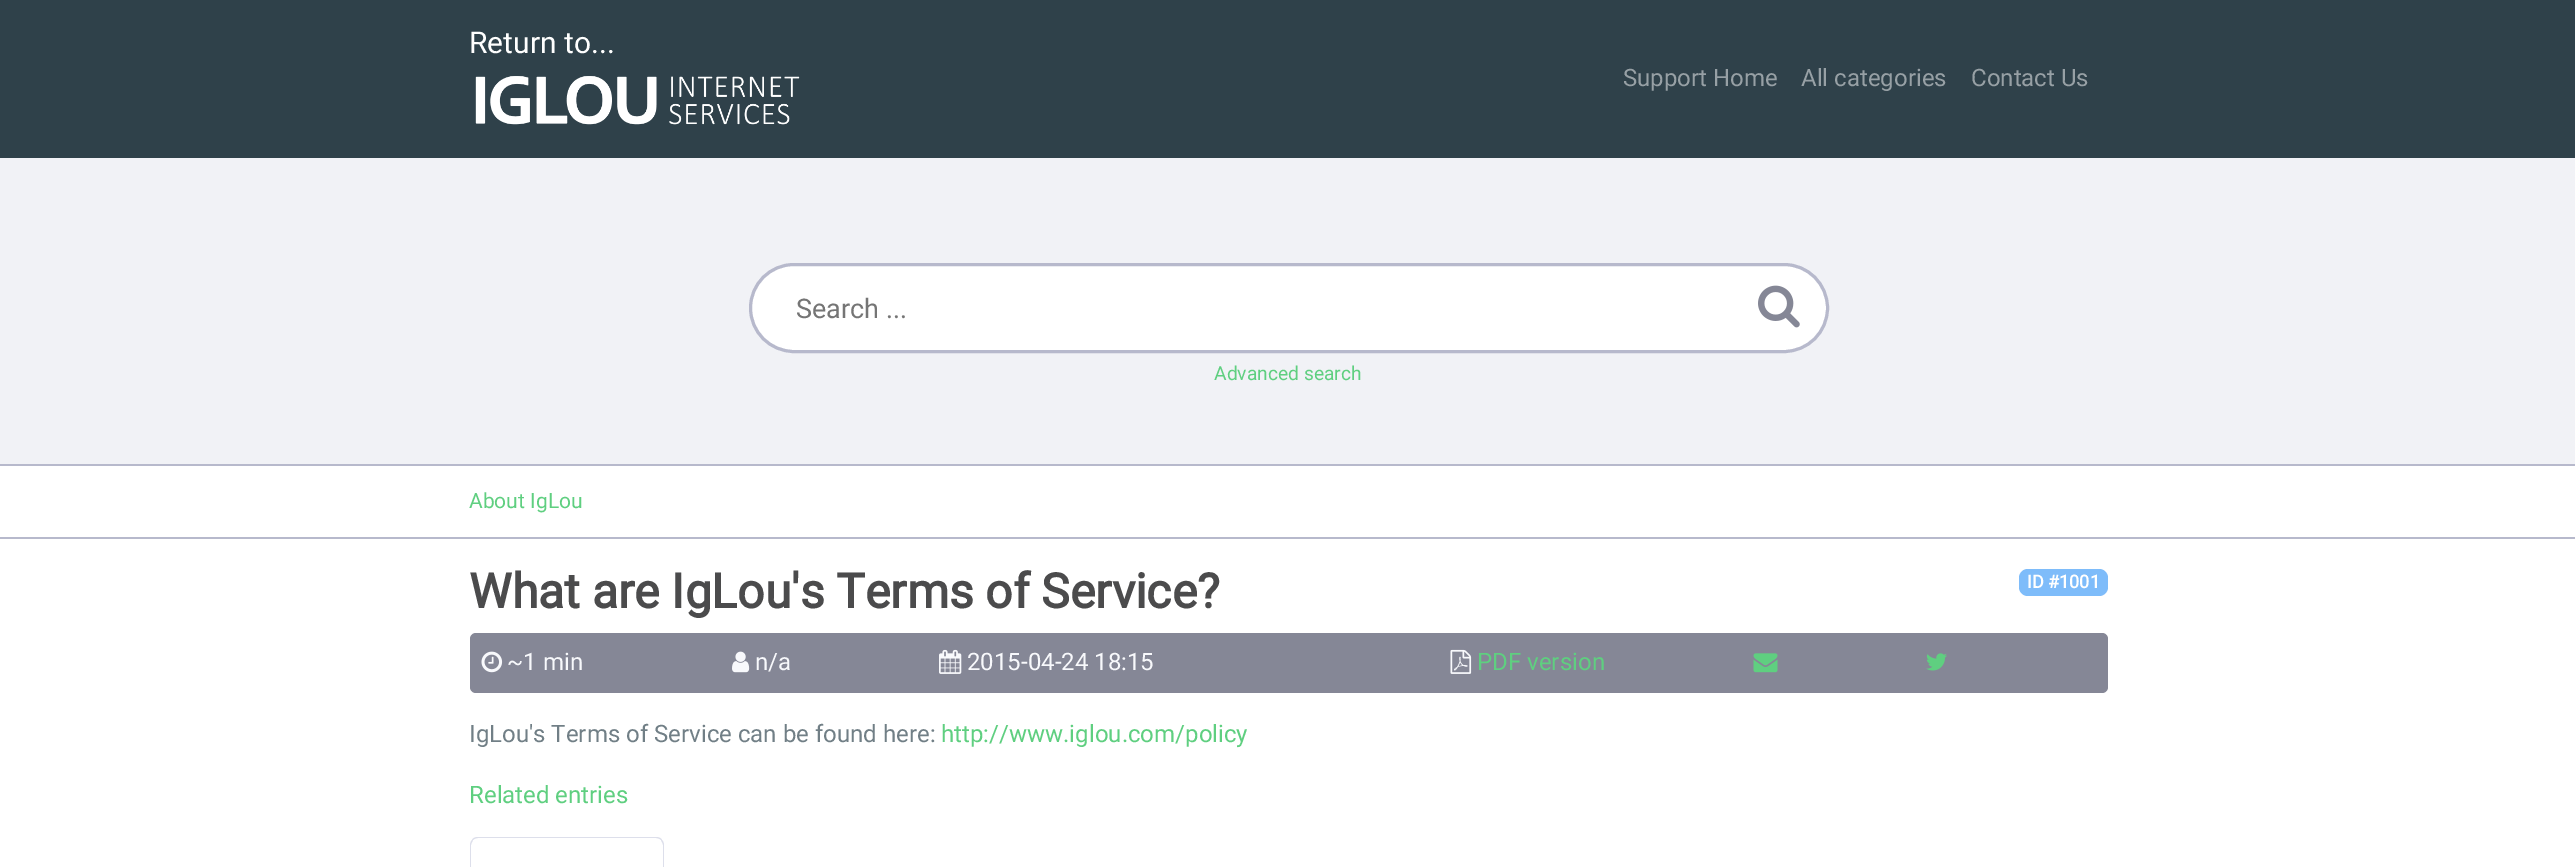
%!PS
<< /PageSize [2575 867] >> setpagedevice
/rgb { dup -16 bitshift 255 div exch dup -8 bitshift 255 and 255 div exch 255 and 255 div setrgbcolor } def
/font { [ exch dup neg 0 0 3 -1 roll 0 0 ] selectfont } def
/text { moveto show } def
/roundrect { 5 dict begin { /r /h /w /y /x } { exch def } forall
  x r add y moveto x w add y 2 copy h add r arct x w add y h add x 1 index r arct
  x y h add x y r arct x y 2 copy exch w add exch r arct closepath end } def
/picture { 5 dict begin { /h /w /y /x /name } { exch def } forall
  gsave x y translate w h scale
  w h 8 [w 0 0 h 0 0] name (r) file false 3 colorimage grestore end } def
0 867 translate 1 -1 scale
4 setmiterlimit
/s1 { /Roboto-Regular 30 font 16#FFFFFF rgb } def
/s2 { /Roboto-Regular 24 font 16#97A0A5 rgb } def
/s3 { /Roboto-Regular 27 font 16#757575 rgb } def
/s4 { /Roboto-Regular 19.25 font 16#5FCF80 rgb } def
/s5 { /Roboto-Regular 21 font 16#5FCF80 rgb } def
/s6 { /Roboto-Bold 48 font 16#4B4B4C rgb } def
/s7 { /Roboto-Bold 18 font 16#FFFFFF rgb } def
/s8 { /Roboto-Regular 24 font 16#F8F9FC rgb } def
/s9 { /Roboto-Regular 24 font 16#5FCF80 rgb } def
/s10 { /Roboto-Regular 24 font 16#717F86 rgb } def
16#FFFFFF rgb
0 0 2575 867 rectfill
16#2F414A rgb
0 0 2575 158 rectfill
s1
(Return to...) 469 53 text
(pic1.raw) 475 76 325 49 picture
s2
(Support Home) 1623 86 text
(All categories) 1801 86 text
(Contact Us) 1971 86 text
16#F1F2F6 rgb
0 158 2575 306 rectfill
16#B7B9CC rgb
0 464 2575 2 rectfill
16#FFFFFF rgb
750.5 264.5 1077 87 43.5 roundrect gsave fill grestore
16#B7B9CC rgb
3 setlinewidth
stroke
s3
(Search ...) 796 318 text
(pic2.raw) 1758 285 42 43 picture
s4
(Advanced search) 1214 380 text
16#B7B9CC rgb
0 537 2575 2 rectfill
s5
(About IgLou) 469 508 text
s6
(What are IgLou's Terms of Service?) 469 608 text
16#7EBCFA rgb
2019 569 89 27 9 roundrect fill
s7
(ID #1001) 2027 588 text
16#858796 rgb
470 633 1638 60 6 roundrect fill
(pic3.raw) 481 651 22 22 picture
s8
(~1 min) 507 670 text
(pic4.raw) 732 651 18 22 picture
(n/a) 755 670 text
(pic5.raw) 939 649 23 25 picture
(2015-04-24 18:15) 967 670 text
(pic6.raw) 1450 649 22 25 picture
s9
(PDF version) 1477 670 text
(pic7.raw) 1753 653 25 20 picture
(pic8.raw) 1926 653 21 18 picture
s10
(IgLou's Terms of Service can be found here:) 469 742 text
s9
(http://www.iglou.com/policy) 941 742 text
(Related entries) 469 803 text
16#DDDFEB rgb
478 837 moveto 475 837 473 838 472 840 curveto 473 840 lineto 474 839 476 838 478 838 curveto 656 838 lineto 658 838 660 839 661 840 curveto 662 840 lineto 661 838 659 837 656 837 curveto closepath fill
662 840 moveto 663 841 664 843 664 845 curveto 664 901 lineto 663 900 lineto 663 845 lineto 663 844 662 842 661 840 curveto closepath fill
472 840 moveto 471 841 470 843 470 845 curveto 470 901 lineto 471 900 lineto 471 845 lineto 471 844 472 842 473 840 curveto closepath fill
showpage
